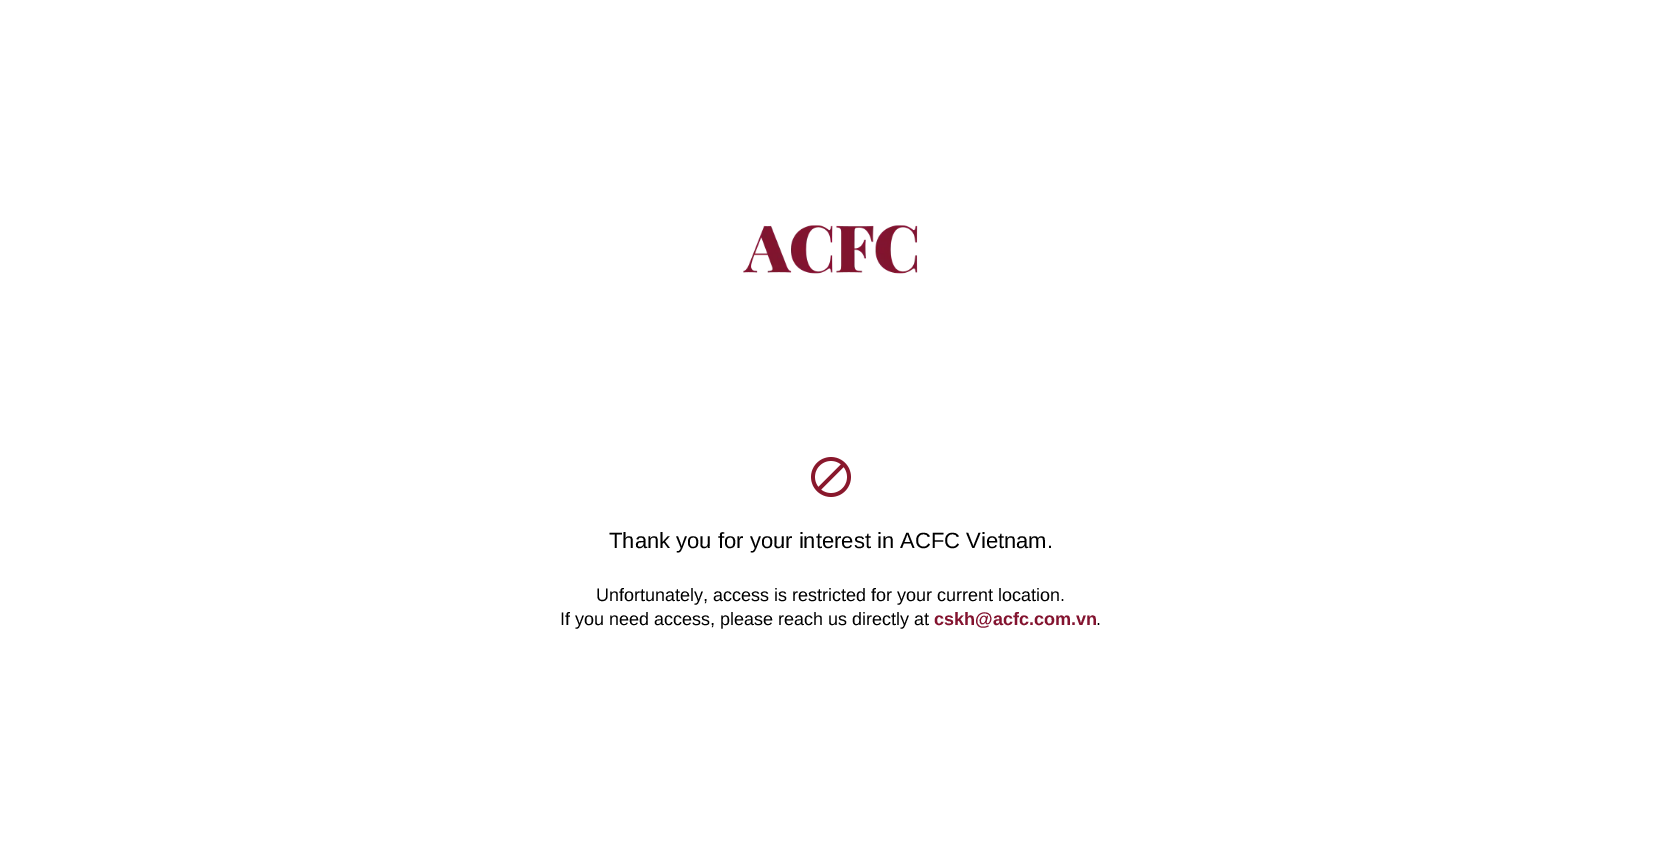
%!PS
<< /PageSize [1661 855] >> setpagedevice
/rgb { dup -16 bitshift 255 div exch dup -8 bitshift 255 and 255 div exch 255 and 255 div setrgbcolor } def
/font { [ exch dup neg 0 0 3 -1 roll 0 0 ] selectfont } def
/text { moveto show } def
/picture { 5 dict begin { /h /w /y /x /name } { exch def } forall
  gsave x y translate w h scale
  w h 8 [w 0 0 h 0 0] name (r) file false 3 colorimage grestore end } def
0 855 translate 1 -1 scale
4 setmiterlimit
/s1 { /LiberationSans-Regular 22 font 16#000000 rgb } def
/s2 { /LiberationSans-Regular 18 font 16#000000 rgb } def
/s3 { /LiberationSans-Bold 18 font 16#83132F rgb } def
16#FFFFFF rgb
0 0 1661 855 rectfill
(pic1.raw) 743 225 175 49 picture
(pic2.raw) 811 457 40 40 picture
s1
(Thank you for your interest in ACFC Vietnam.) 609 548 text
s2
(Unfortunately, access is restricted for your current location.) 596 601 text
(If you need access, please reach us directly at) 560 625 text
s3
(cskh@acfc.com.vn) 934 625 text
s2
(.) 1096 625 text
showpage
